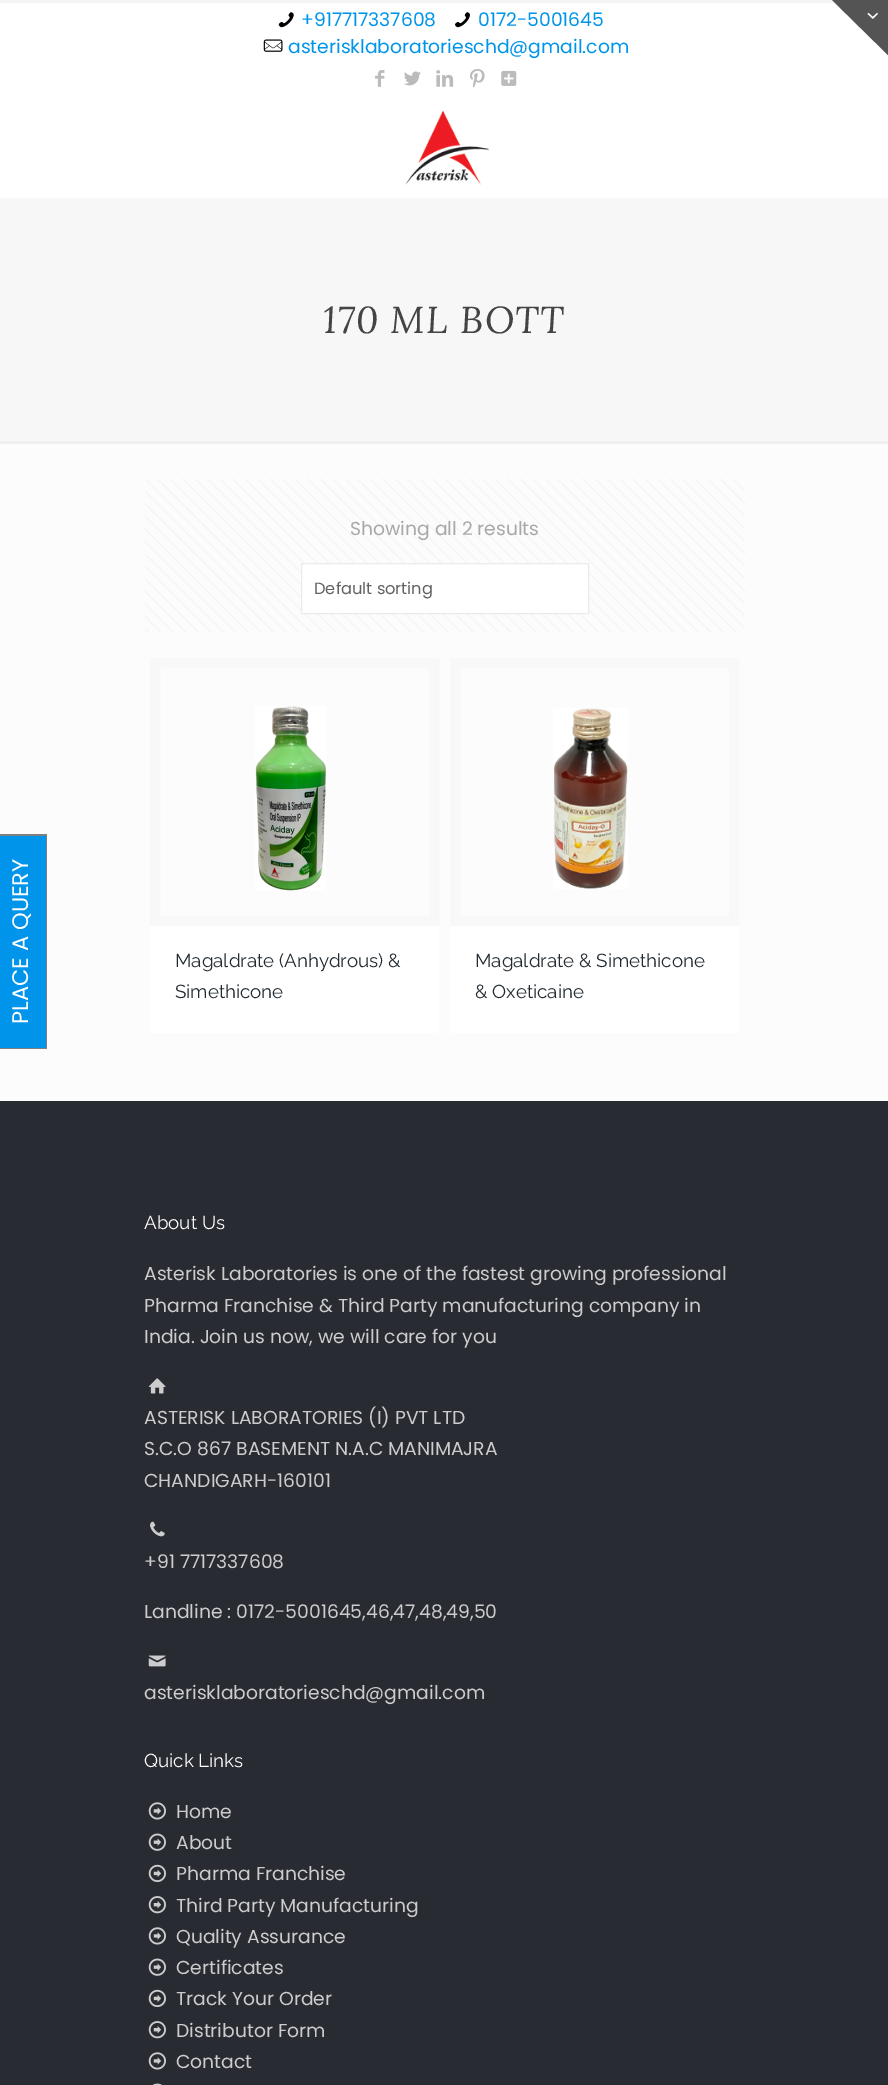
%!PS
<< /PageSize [888 2085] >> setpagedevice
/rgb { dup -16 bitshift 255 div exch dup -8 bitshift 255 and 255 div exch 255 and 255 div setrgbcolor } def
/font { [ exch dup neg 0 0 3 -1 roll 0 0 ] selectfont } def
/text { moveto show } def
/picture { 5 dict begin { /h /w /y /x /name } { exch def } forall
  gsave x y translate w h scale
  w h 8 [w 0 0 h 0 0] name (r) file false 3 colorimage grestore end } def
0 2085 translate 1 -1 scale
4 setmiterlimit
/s1 { /Poppins-Regular 18.75 font 16#0095EB rgb } def
/s2 { /Poppins-Regular 18.75 font 16#A8A8A8 rgb } def
/s3 { /Poppins-Regular 16.25 font 16#626262 rgb } def
/s4 { /Raleway-Regular 18.75 font 16#202A30 rgb } def
/s5 { /Raleway-Regular 18.75 font 16#FFFFFF rgb } def
/s6 { /Poppins-Regular 18.75 font 16#CCCCCC rgb } def
16#FCFCFC rgb
0 0 888 2085 rectfill
16#F5F5F5 rgb
0 0 835 3 rectfill
16#FFFFFF rgb
0 3 888 195 rectfill
16#545454 rgb
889 0 moveto 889 56 lineto 832 0 lineto closepath fill
(pic1.raw) 867 12 11 7 picture
16#0095EB rgb
0 836 46 212 rectfill
16#7F7F7F rgb
0 834 47 2 rectfill
46 834 1 215 rectfill
0 1048 47 1 rectfill
/Poppins-Regular 22.5 font
16#FFFFFF rgb
gsave 28 1024 translate -90 rotate 0 0 moveto (PLACE A QUERY) show grestore
(pic2.raw) 278 12 16 16 picture
s1
(+917717337608) 301 26 text
(pic3.raw) 455 12 15 16 picture
(0172-5001645) 478 26 text
(pic4.raw) 263 39 20 13 picture
(asterisklaboratorieschd@gmail.com) 288 53 text
(pic5.raw) 375 70 10 17 picture
(pic6.raw) 404 71 17 15 picture
(pic7.raw) 436 70 18 17 picture
(pic8.raw) 470 69 15 19 picture
(pic9.raw) 501 70 16 16 picture
(pic10.raw) 405 111 84 74 picture
16#F7F7F7 rgb
0 198 888 243 rectfill
/Lora-Italic 37.5 font
16#444444 rgb
323 333 moveto 1.25 0 (170 ML BOTT) ashow
16#EFEFEF rgb
0 441 888 3 rectfill
(pic11.raw) 145 479 600 153 picture
s2
(Showing all 2 results) 350 535 text
16#FFFFFF rgb
301.5 563.5 moveto 588.5 563.5 lineto 588.5 613.5 lineto 301.5 613.5 lineto closepath gsave fill grestore
16#EBEBEB rgb
stroke
s3
(Default sorting) 314 594 text
16#F8F8F8 rgb
10 setlinewidth
155 663 279 258 rectstroke
(pic12.raw) 255 706 71 185 picture
16#FFFFFF rgb
150 926 289 107 rectfill
s4
(Magaldrate \(Anhydrous\) &) 175 967 text
(Simethicone) 175 998 text
16#F8F8F8 rgb
455 663 279 258 rectstroke
(pic13.raw) 553 708 75 181 picture
16#FFFFFF rgb
450 926 289 107 rectfill
s4
(Magaldrate & Simethicone) 475 967 text
(& Oxeticaine) 475 998 text
16#292B33 rgb
0 1101 888 984 rectfill
s5
(About Us) 144 1229 text
s6
(Asterisk Laboratories is one of the fastest growing professional) 144 1280 text
(Pharma Franchise & Third Party manufacturing company in) 144 1312 text
(India. Join us now, we will care for you) 144 1343 text
(pic14.raw) 148 1378 18 16 picture
(ASTERISK LABORATORIES \(I\) PVT LTD) 144 1424 text
(S.C.O 867 BASEMENT N.A.C MANIMAJRA) 144 1455 text
(CHANDIGARH-160101) 144 1487 text
(pic15.raw) 150 1521 15 16 picture
(+91 7717337608) 144 1568 text
(Landline : 0172-5001645,46,47,48,49,50) 144 1618 text
(pic16.raw) 148 1655 18 12 picture
(asterisklaboratorieschd@gmail.com) 144 1699 text
s5
(Quick Links) 144 1767 text
(pic17.raw) 148 1802 18 18 picture
s6
(Home) 176 1818 text
(pic18.raw) 148 1833 18 18 picture
(About) 176 1849 text
(pic19.raw) 148 1864 18 19 picture
(Pharma Franchise) 176 1880 text
(pic20.raw) 148 1896 18 18 picture
(Third Party Manufacturing) 176 1912 text
(pic17.raw) 148 1927 18 18 picture
(Quality Assurance) 176 1943 text
(pic18.raw) 148 1958 18 18 picture
(Certificates) 176 1974 text
(pic19.raw) 148 1989 18 19 picture
(Track Your Order) 176 2005 text
(pic20.raw) 148 2021 18 18 picture
(Distributor Form) 176 2037 text
(pic17.raw) 148 2052 18 18 picture
(Contact) 176 2068 text
(pic21.raw) 152 2083 10 2 picture
showpage
